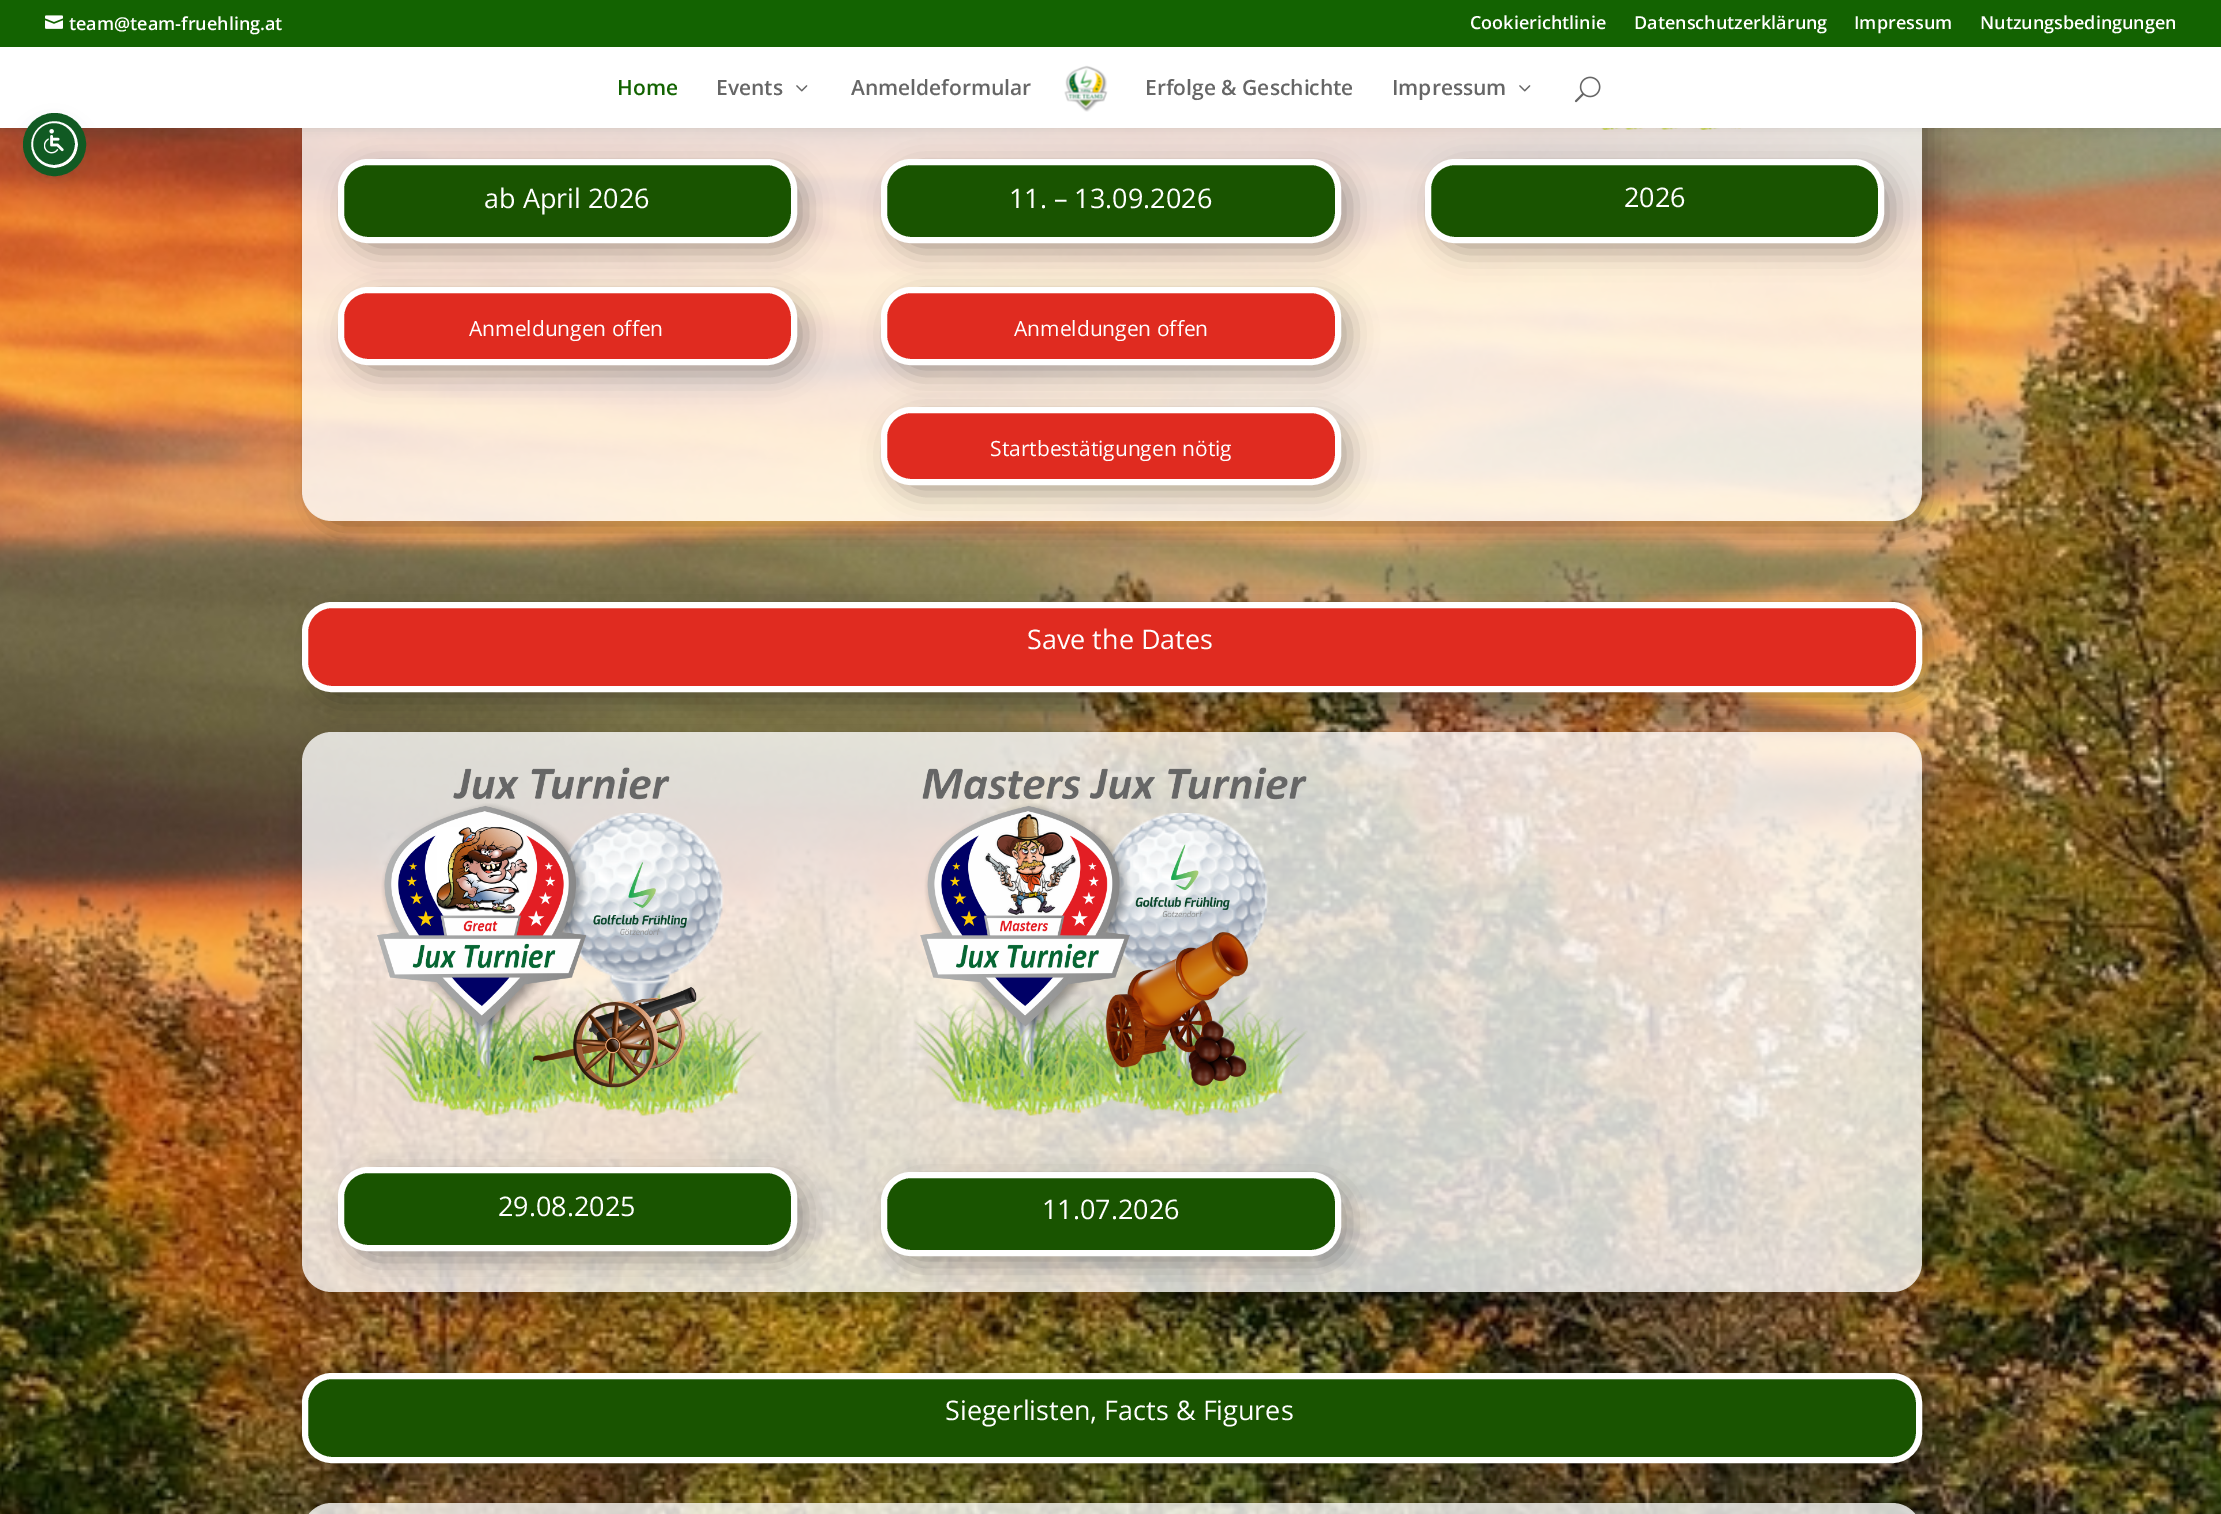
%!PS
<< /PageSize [2221 1514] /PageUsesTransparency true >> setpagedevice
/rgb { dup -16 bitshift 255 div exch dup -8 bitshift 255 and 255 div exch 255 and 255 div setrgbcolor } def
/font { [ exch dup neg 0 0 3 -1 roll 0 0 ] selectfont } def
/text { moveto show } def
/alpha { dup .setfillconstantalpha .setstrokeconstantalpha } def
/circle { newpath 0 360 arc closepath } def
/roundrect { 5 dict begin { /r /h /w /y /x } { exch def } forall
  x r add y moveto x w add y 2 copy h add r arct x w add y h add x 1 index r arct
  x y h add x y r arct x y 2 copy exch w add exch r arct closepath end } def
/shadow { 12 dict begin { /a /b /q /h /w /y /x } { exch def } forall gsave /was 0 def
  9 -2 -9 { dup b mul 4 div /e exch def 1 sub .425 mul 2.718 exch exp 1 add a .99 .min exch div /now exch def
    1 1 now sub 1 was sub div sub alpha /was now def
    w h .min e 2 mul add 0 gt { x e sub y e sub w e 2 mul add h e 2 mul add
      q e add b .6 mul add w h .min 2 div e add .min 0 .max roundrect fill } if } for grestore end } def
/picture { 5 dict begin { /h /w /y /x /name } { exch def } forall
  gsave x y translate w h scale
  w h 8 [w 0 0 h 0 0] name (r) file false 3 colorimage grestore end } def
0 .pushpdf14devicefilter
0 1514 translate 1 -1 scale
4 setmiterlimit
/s1 { /OpenSans-SemiBold 18 font 16#FFFFFF rgb } def
/s2 { /OpenSans-SemiBold 21 font 16#136301 rgb } def
/s3 { /OpenSans-SemiBold 21 font 16#666666 rgb } def
/s4 { /OpenSans-Regular 27 font 16#FFFFFF rgb } def
/s5 { /OpenSans-Regular 21 font 16#FFFFFF rgb } def
16#FFFFFF rgb
0 0 2221 1514 rectfill
(pic6.raw) 0 128 2221 1386 picture
gsave
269 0 moveto 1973 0 lineto 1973 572 lineto 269 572 lineto closepath 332 -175 moveto 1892 -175 lineto 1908.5 -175 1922 -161.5 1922 -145 curveto 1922 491 lineto 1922 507.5 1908.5 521 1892 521 curveto 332 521 lineto 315.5 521 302 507.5 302 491 curveto 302 -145 lineto 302 -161.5 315.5 -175 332 -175 curveto closepath eoclip newpath
16#000000 rgb
311 -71 1620 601 30 13.5 0.3 shadow
grestore
0.79 alpha
302 -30 1620 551 30 roundrect fill
1 alpha
(pic7.raw) 1601 128 140 2 picture
16#000000 rgb
0 47 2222 81 0 5 0.1 shadow
347 168 459 84 30 13.5 0.3 shadow
890 168 460 84 30 13.5 0.3 shadow
1434 168 459 84 30 13.5 0.3 shadow
16#FFFFFF rgb
0 47 2221 81 rectfill
16#5D6494 rgb
30 123 48 48 24 3 0.2 shadow
16#252C61 rgb
30 128 48 48 24 11 0.15 shadow
16#115A23 rgb
54 144 22.5 circle gsave fill grestore
16#FFFFFF rgb
3 setlinewidth
stroke
16#115A23 rgb
8 setlinewidth
54.5 144.5 27.5 circle stroke
(pic1.raw) 44 129 20 25 picture
16#136301 rgb
0 0 2221 47 rectfill
(pic2.raw) 45 15 18 14 picture
s1
(team@team-fruehling.at) 69 30 text
(Cookierichtlinie) 1470 29 text
(Datenschutzerklärung) 1634 29 text
(Impressum) 1854 29 text
(Nutzungsbedingungen) 1980 29 text
s2
(Home) 617 95 text
s3
(Events) 716 95 text
(pic3.raw) 796 85 12 7 picture
(Anmeldeformular) 851 95 text
(pic4.raw) 1064 65 44 47 picture
(Erfolge & Geschichte) 1145 95 text
(Impressum) 1392 95 text
(pic3.raw) 1519 85 12 7 picture
(pic5.raw) 1574 76 27 27 picture
16#195400 rgb
341 162 453 78 27 roundrect gsave fill grestore
16#FFFFFF rgb
6 setlinewidth
stroke
s4
(ab April 2026) 484 208 text
16#000000 rgb
347 296 459 78 30 13.5 0.3 shadow
16#E02B20 rgb
341 290 453 72 27 roundrect gsave fill grestore
16#FFFFFF rgb
stroke
s5
(Anmeldungen offen) 469 336 text
16#195400 rgb
884 162 454 78 27 roundrect gsave fill grestore
16#FFFFFF rgb
stroke
s4
(11. – 13.09.2026) 1009 208 text
16#000000 rgb
890 296 460 78 30 13.5 0.3 shadow
16#E02B20 rgb
884 290 454 72 27 roundrect gsave fill grestore
16#FFFFFF rgb
stroke
s5
(Anmeldungen offen) 1014 336 text
16#000000 rgb
890 416 460 78 30 13.5 0.3 shadow
16#E02B20 rgb
884 410 454 72 27 roundrect gsave fill grestore
16#FFFFFF rgb
stroke
(Startbestätigungen nötig) 990 456 text
16#195400 rgb
1428 162 453 78 27 roundrect gsave fill grestore
16#FFFFFF rgb
stroke
s4
(2026) 1624 207 text
gsave
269 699 moveto 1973 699 lineto 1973 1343 lineto 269 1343 lineto closepath 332 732 moveto 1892 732 lineto 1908.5 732 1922 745.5 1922 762 curveto 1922 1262 lineto 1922 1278.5 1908.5 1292 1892 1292 curveto 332 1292 lineto 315.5 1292 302 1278.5 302 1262 curveto 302 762 lineto 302 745.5 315.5 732 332 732 curveto closepath eoclip newpath
16#000000 rgb
311 741 1620 560 30 13.5 0.3 shadow
grestore
0.79 alpha
302 732 1620 560 30 roundrect fill
1 alpha
16#000000 rgb
311 611 1620 90 30 13.5 0.3 shadow
16#E02B20 rgb
305 605 1614 84 27 roundrect gsave fill grestore
16#FFFFFF rgb
stroke
(Save the Dates) 1027 649 text
(pic8.raw) 371 767 393 349 picture
16#000000 rgb
347 1176 459 84 30 13.5 0.3 shadow
16#195400 rgb
341 1170 453 78 27 roundrect gsave fill grestore
16#FFFFFF rgb
stroke
(29.08.2025) 498 1216 text
(pic9.raw) 914 767 394 349 picture
16#000000 rgb
890 1181 460 84 30 13.5 0.3 shadow
16#195400 rgb
884 1175 454 78 27 roundrect gsave fill grestore
16#FFFFFF rgb
stroke
(11.07.2026) 1042 1219 text
gsave
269 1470 moveto 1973 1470 lineto 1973 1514 lineto 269 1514 lineto closepath 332 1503 moveto 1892 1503 lineto 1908.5 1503 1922 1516.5 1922 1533 curveto 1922 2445 lineto 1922 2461.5 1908.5 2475 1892 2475 curveto 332 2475 lineto 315.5 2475 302 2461.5 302 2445 curveto 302 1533 lineto 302 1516.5 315.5 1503 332 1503 curveto closepath eoclip newpath
16#000000 rgb
311 1512 1620 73 30 13.5 0.3 shadow
grestore
0.79 alpha
302 1503 1620 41 30 roundrect fill
1 alpha
16#000000 rgb
311 1382 1620 90 30 13.5 0.3 shadow
16#195400 rgb
305 1376 1614 84 27 roundrect gsave fill grestore
16#FFFFFF rgb
stroke
(Siegerlisten, Facts & Figures) 945 1420 text
.poppdf14devicefilter showpage
